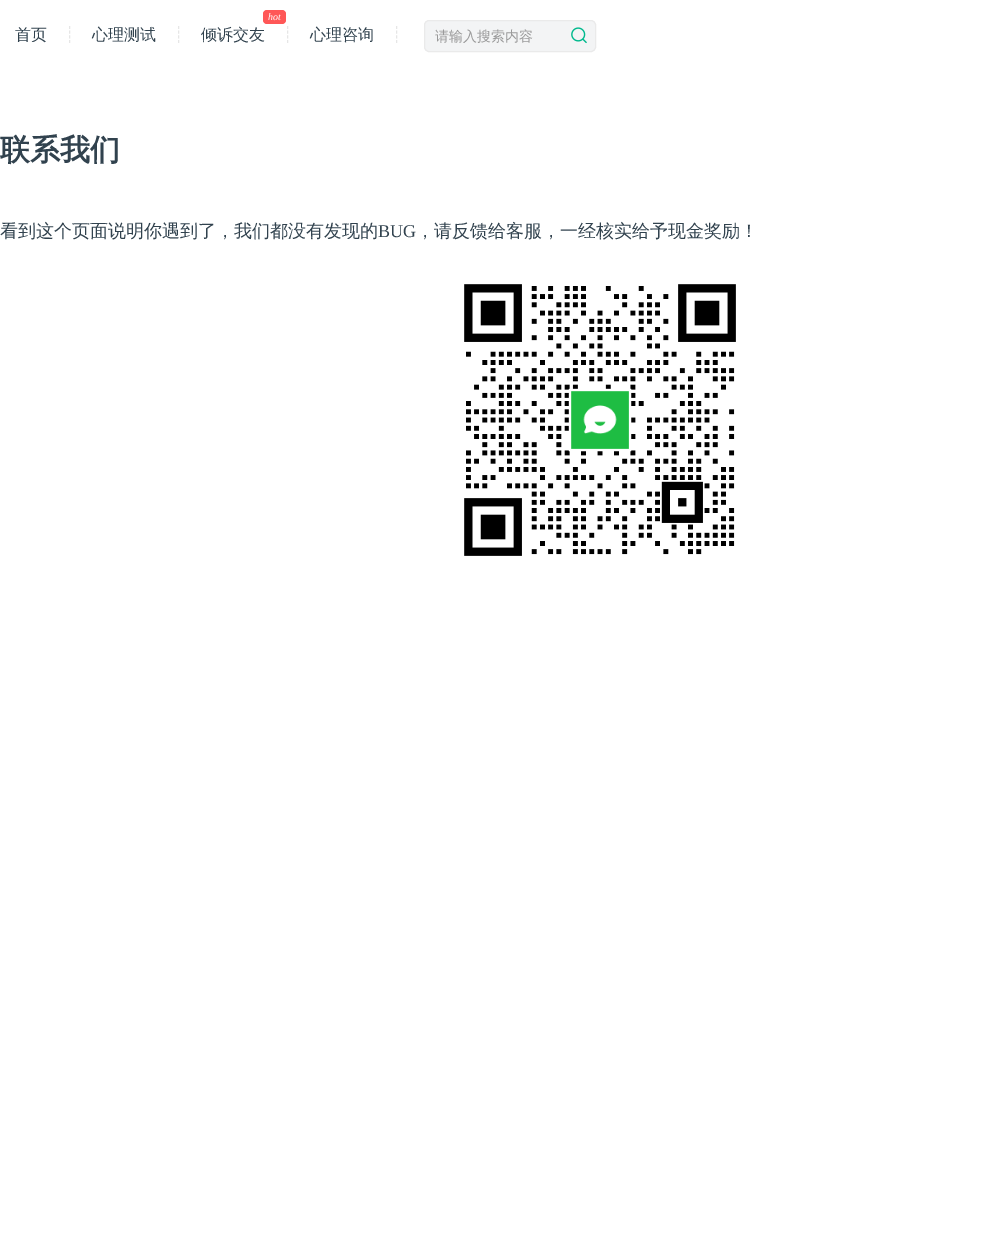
%!PS
<< /PageSize [998 1243] >> setpagedevice
/rgb { dup -16 bitshift 255 div exch dup -8 bitshift 255 and 255 div exch 255 and 255 div setrgbcolor } def
/font { [ exch dup neg 0 0 3 -1 roll 0 0 ] selectfont } def
/text { moveto show } def
/roundrect { 5 dict begin { /r /h /w /y /x } { exch def } forall
  x r add y moveto x w add y 2 copy h add r arct x w add y h add x 1 index r arct
  x y h add x y r arct x y 2 copy exch w add exch r arct closepath end } def
/picture { 5 dict begin { /h /w /y /x /name } { exch def } forall
  gsave x y translate w h scale
  w h 8 [w 0 0 h 0 0] name (r) file false 3 colorimage grestore end } def
0 1243 translate 1 -1 scale
4 setmiterlimit
/s1 { /WenQuanYiZenHei-Medium 16 font 16#31424E rgb } def
/s2 { /LiberationSerif-Italic 10 font 16#FFFFFF rgb } def
/s3 { /WenQuanYiZenHei-Medium 14 font 16#9A9A9A rgb } def
/s4 { /WenQuanYiZenHei-Bold 30 font 16#31424E rgb } def
/s5 { /WenQuanYiZenHei-Medium 18 font 16#31424E rgb } def
/s6 { /LiberationSerif-Regular 18 font 16#31424E rgb } def
16#FFFFFF rgb
0 0 998 1243 rectfill
s1
(首页) 15 40 text
16#E6E6E6 rgb
[3 1.67] 0 setdash
69.5 26 moveto 69.5 43 lineto stroke
s1
(心理测试) 92 40 text
16#E6E6E6 rgb
178.5 26 moveto 178.5 43 lineto stroke
16#FF5757 rgb
263 10 23 14 4 roundrect fill
s2
(hot) 268 20 text
s1
(倾诉交友) 201 40 text
16#E6E6E6 rgb
287.5 26 moveto 287.5 43 lineto stroke
s1
(心理咨询) 310 40 text
16#E6E6E6 rgb
396.5 26 moveto 396.5 43 lineto stroke
16#F3F4F5 rgb
424.5 20.5 171 31 4.5 roundrect gsave fill grestore
16#EAEAEA rgb
[] 0 setdash
stroke
s3
(请输入搜索内容) 435 41 text
(pic1.raw) 571 27 16 17 picture
s4
(联系我们) 0 160 text
s5
(看到这个页面说明你遇到了，我们都没有发现的) 0 237 text
s6
(BUG) 378 237 text
s5
(，请反馈给客服，一经核实给予现金奖励！) 416 237 text
(pic2.raw) 464 284 272 272 picture
showpage
